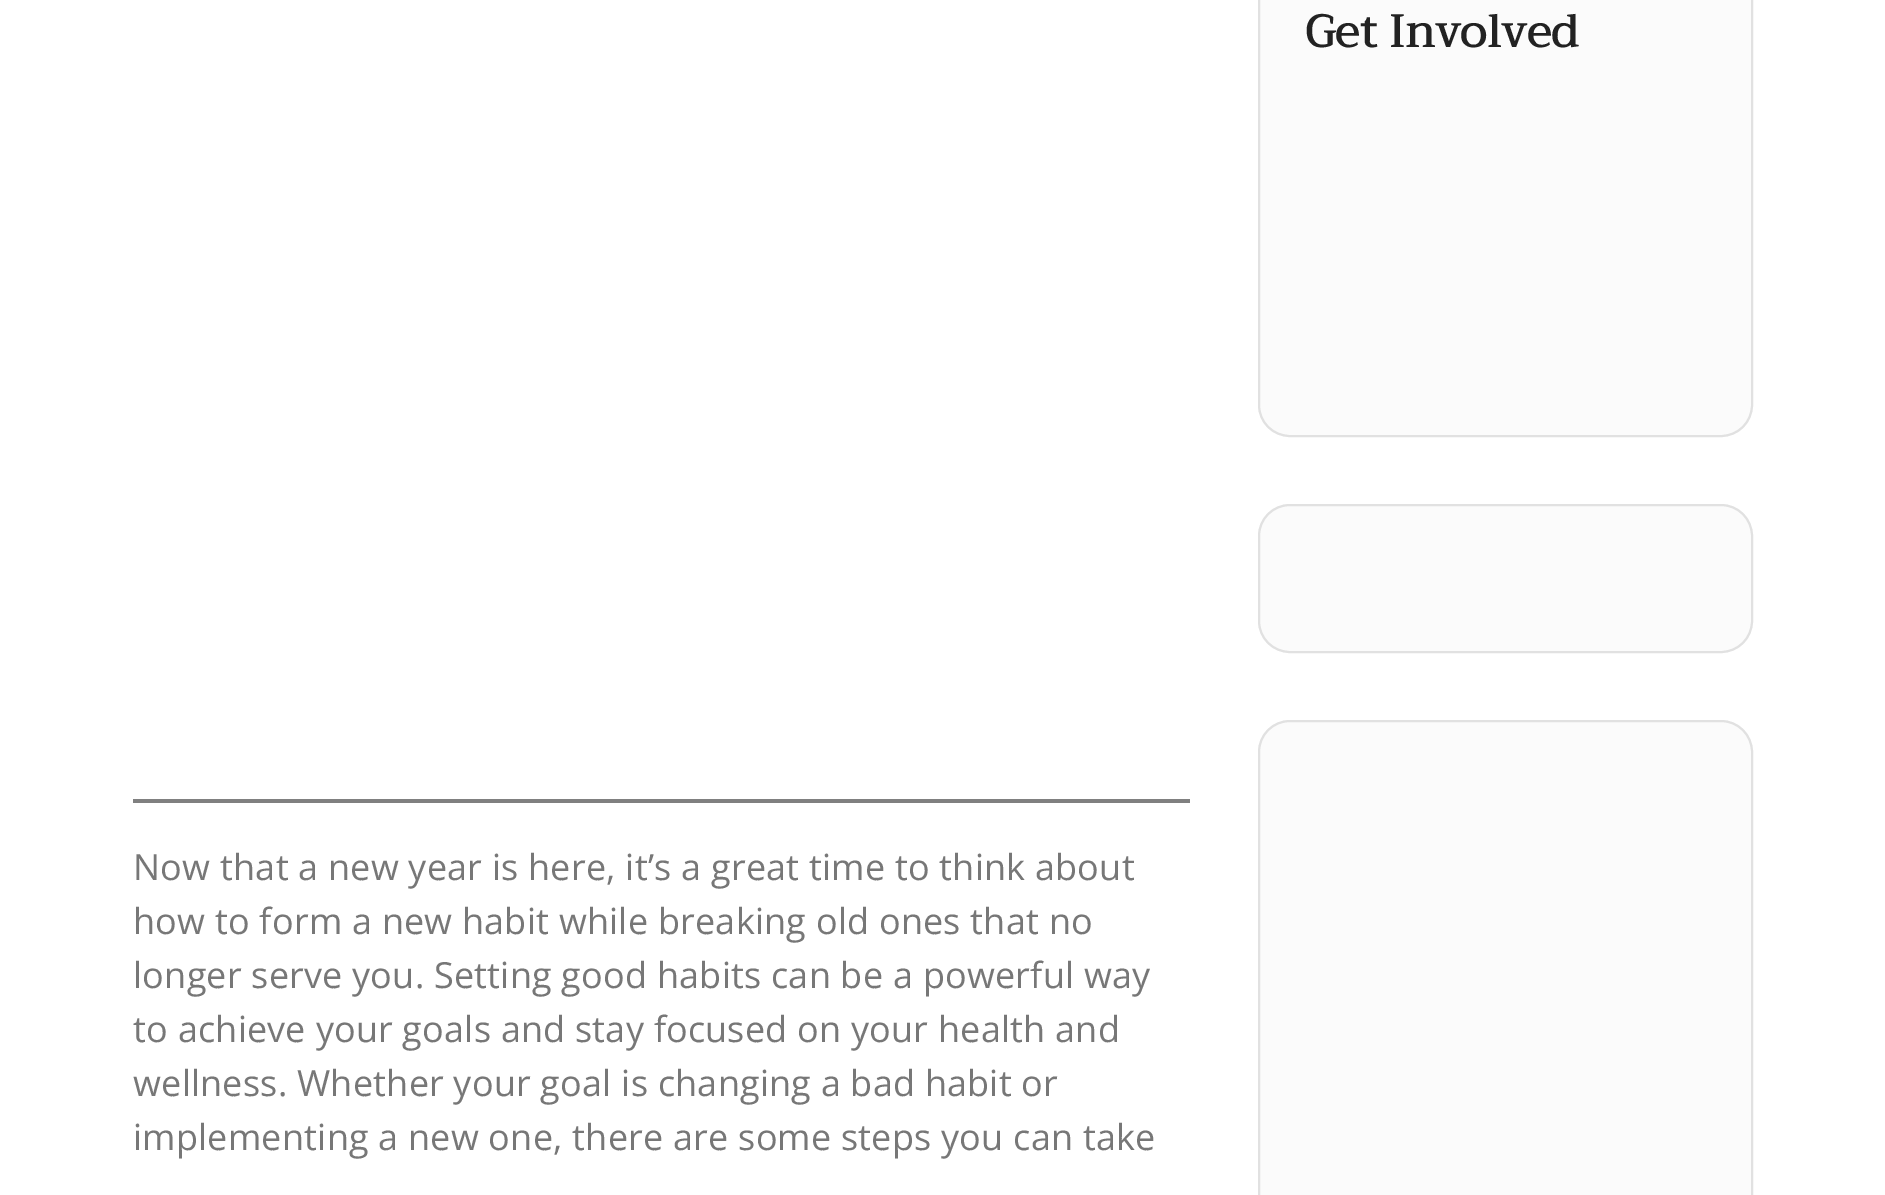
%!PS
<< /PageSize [1885 1195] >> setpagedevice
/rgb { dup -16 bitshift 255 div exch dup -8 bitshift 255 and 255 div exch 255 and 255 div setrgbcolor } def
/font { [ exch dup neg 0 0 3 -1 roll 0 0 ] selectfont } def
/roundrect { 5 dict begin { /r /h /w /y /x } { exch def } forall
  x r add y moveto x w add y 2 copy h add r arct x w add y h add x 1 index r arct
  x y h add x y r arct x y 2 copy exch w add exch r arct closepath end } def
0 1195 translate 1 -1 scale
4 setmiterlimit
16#FFFFFF rgb
0 0 1885 1195 rectfill
16#FBFBFB rgb
1259 -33 493 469 31 roundrect gsave fill grestore
16#E1E1E1 rgb
2 setlinewidth
stroke
/Trirong-Bold 45 font
16#222222 rgb
1305 47 moveto 0.23 0 (Get Involved) ashow
16#FBFBFB rgb
1259 505 493 147 31 roundrect gsave fill grestore
16#E1E1E1 rgb
stroke
16#FBFBFB rgb
1259 721 493 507 31 roundrect gsave fill grestore
16#E1E1E1 rgb
stroke
16#808080 rgb
133 799 1057 4 rectfill
/OpenSans-Regular 36 font
16#777777 rgb
133 880 moveto 0.23 0 (Now that a new year is here, it’s a great time to think about) ashow
133 934 moveto 0.23 0 (how to form a new habit while breaking old ones that no) ashow
133 988 moveto 0.23 0 (longer serve you. Setting good habits can be a powerful way) ashow
133 1042 moveto 0.23 0 (to achieve your goals and stay focused on your health and) ashow
133 1096 moveto 0.23 0 (wellness. Whether your goal is changing a bad habit or) ashow
133 1150 moveto 0.23 0 (implementing a new one, there are some steps you can take) ashow
showpage
